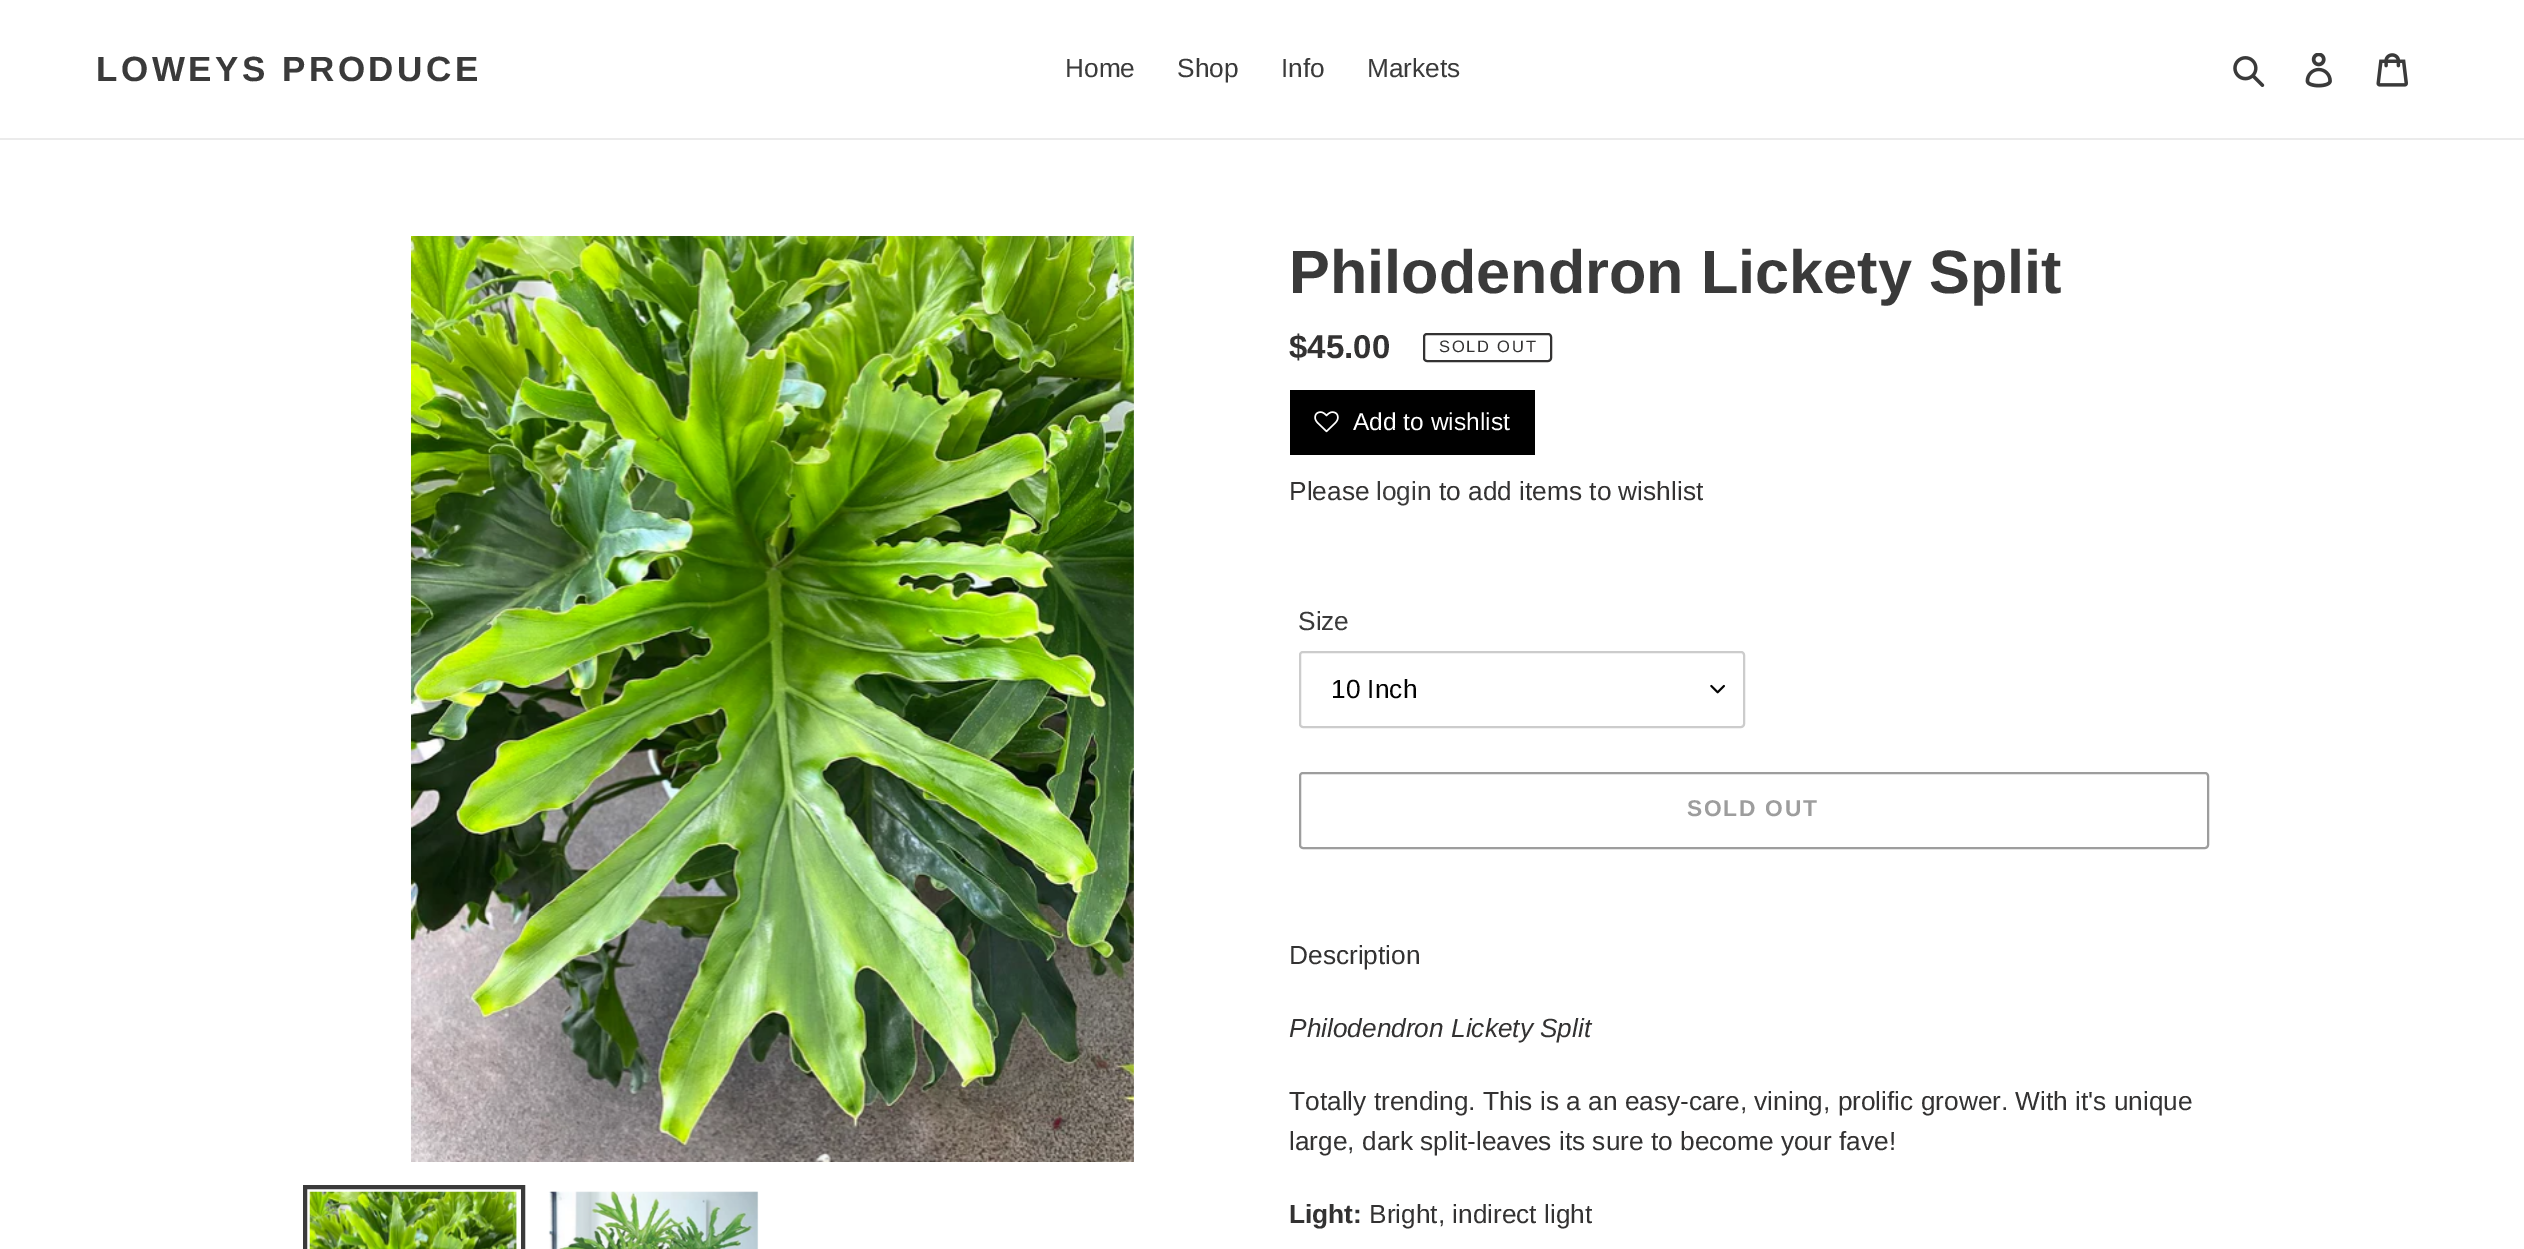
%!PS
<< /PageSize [2524 1249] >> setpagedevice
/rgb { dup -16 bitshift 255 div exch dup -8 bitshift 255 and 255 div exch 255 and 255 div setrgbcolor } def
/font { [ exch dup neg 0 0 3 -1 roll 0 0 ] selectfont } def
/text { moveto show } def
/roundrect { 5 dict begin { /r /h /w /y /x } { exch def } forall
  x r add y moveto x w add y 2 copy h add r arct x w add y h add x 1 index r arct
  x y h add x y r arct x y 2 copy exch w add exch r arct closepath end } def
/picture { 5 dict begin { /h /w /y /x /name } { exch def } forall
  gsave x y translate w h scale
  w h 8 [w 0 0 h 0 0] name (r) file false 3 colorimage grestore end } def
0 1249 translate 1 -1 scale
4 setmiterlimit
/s1 { /LiberationSans-Regular 26.25 font 16#3A3A3A rgb } def
/s2 { /LiberationSans-Bold 61.25 font 16#3A3A3A rgb } def
/s3 { /LiberationSans-Bold 33 font 16#333232 rgb } def
/s4 { /LiberationSans-Regular 24.5 font 16#FFFFFF rgb } def
/s5 { /LiberationSans-Regular 26.25 font 16#333232 rgb } def
/s6 { /LiberationSans-Regular 26.25 font 16#030303 rgb } def
/s7 { /LiberationSans-Italic 26.25 font 16#333232 rgb } def
/s8 { /LiberationSans-Bold 26.25 font 16#333232 rgb } def
16#FFFFFF rgb
0 0 2524 1249 rectfill
16#EBEBEB rgb
0 138 2524 2 rectfill
/LiberationSans-Bold 35 font
16#3A3A3A rgb
96 81 moveto 3.5 0 (LOWEYS PRODUCE) ashow
s1
(Home) 1065 77 text
(Shop) 1177 77 text
(Info) 1281 77 text
(Markets) 1367 77 text
(pic1.raw) 2233 56 32 31 picture
(pic2.raw) 2305 53 27 35 picture
(pic3.raw) 2376 53 32 34 picture
(pic4.raw) 411 236 723 926 picture
4 setlinewidth
305 1187 218 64 rectstroke
(pic5.raw) 308 1190 209 59 picture
(pic6.raw) 548 1191 211 58 picture
s2
(Philodendron Lickety Split) 1289 293 text
s3
($45.00) 1289 358 text
2 setlinewidth
1424 334 127 27 3 roundrect stroke
/LiberationSans-Regular 16.5 font
1439 352 moveto 1.75 0 (SOLD OUT) ashow
16#000000 rgb
1290 390 245 65 rectfill
(pic7.raw) 1314 411 25 22 picture
s4
(Add to wishlist) 1353 430 text
s5
(Please) 1289 500 text
s1
(login) 1376 500 text
s5
(to add items to wishlist) 1439 500 text
s1
(Size) 1298 630 text
(pic8.raw) 1710 684 15 10 picture
16#CCCCCC rgb
1300 652 444 75 3 roundrect stroke
s6
(10 Inch) 1331 698 text
16#9D9D9D rgb
1300 773 908 75 3 roundrect stroke
/LiberationSans-Bold 22.75 font
1687 816 moveto 1.75 0 (SOLD OUT) ashow
s5
(Description) 1289 964 text
s7
(Philodendron Lickety Split) 1289 1037 text
s5
(Totally trending. This is a an easy-care, vining, prolific grower. With it's unique) 1289 1110 text
(large, dark split-leaves its sure to become your fave!) 1289 1150 text
s8
(Light:) 1289 1223 text
s5
(Bright, indirect light) 1369 1223 text
showpage
